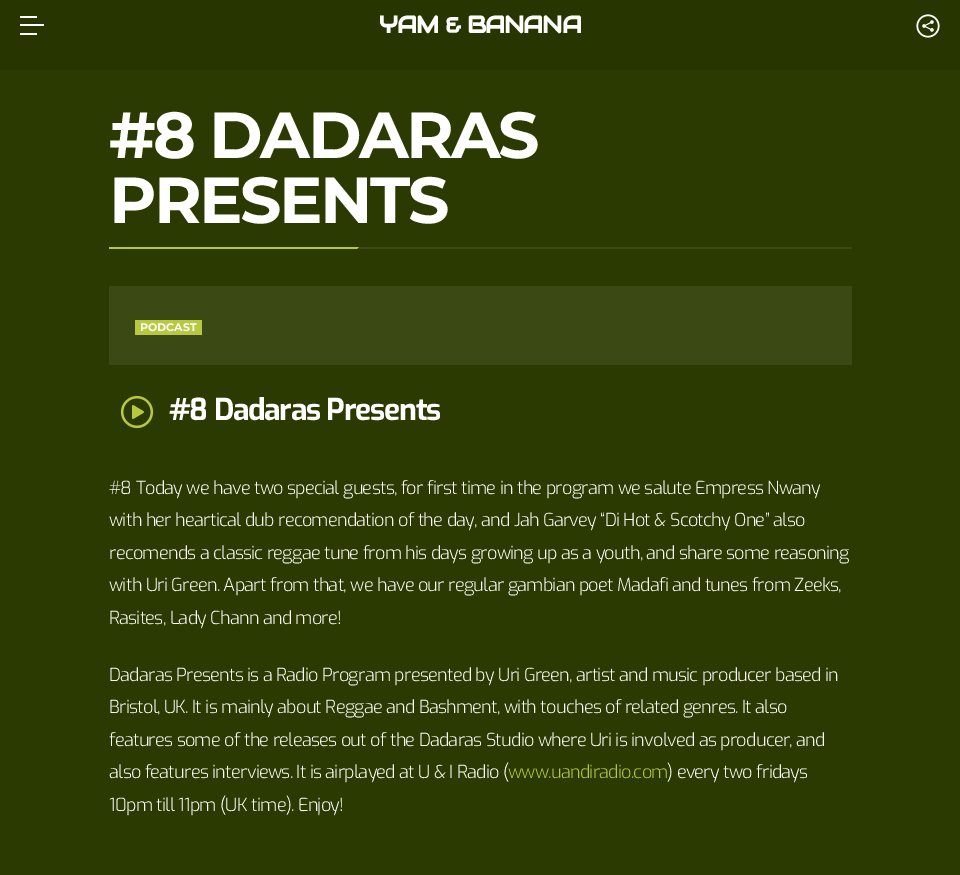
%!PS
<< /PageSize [960 875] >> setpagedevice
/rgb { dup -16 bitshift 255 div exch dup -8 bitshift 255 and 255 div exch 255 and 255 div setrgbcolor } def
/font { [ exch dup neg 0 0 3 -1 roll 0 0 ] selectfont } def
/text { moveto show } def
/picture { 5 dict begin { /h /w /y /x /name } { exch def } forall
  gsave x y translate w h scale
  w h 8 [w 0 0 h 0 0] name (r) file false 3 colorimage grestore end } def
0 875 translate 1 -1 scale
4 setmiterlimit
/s1 { /Montserrat-Thin 11 font 16#FFFFFF rgb } def
16#2A3A00 rgb
0 0 960 875 rectfill
16#273500 rgb
0 0 960 70 rectfill
16#FFFFFF rgb
20 16 17 2 rectfill
20 24 24 2 rectfill
20 33 17 2 rectfill
/Audiowide-Bold 24 font
379 33 moveto -1 0 (YAM & BANANA) ashow
(pic1.raw) 916 14 24 24 picture
/Montserrat-Thin 65 font
109 158 moveto -2.6 0 (#8 DADARAS) ashow
109 223 moveto -2.6 0 (PRESENTS) ashow
16#3B4A14 rgb
357 247 495 2 rectfill
gsave
109 247 743 2 rectclip
16#B8C940 rgb
109 247 moveto 359 247 lineto 355 251 lineto 109 251 lineto closepath fill
grestore
109 286 743 79 rectfill
16#B8C940 rgb
135 320 67 15 rectfill
s1
(PODCAST) 140 331 text
(pic2.raw) 120 396 34 33 picture
/Exo-Bold 30 font
169 420 moveto -1.25 0 (#8 Dadaras Presents) ashow
/Exo-Light 18 font
109 494 moveto -0.72 0 (#8 Today we have two special guests, for first time in the program we salute Empress Nwany) ashow
109 526 moveto -0.72 0 (with her heartical dub recomendation of the day, and Jah Garvey “Di Hot & Scotchy One” also) ashow
109 559 moveto -0.72 0 (recomends a classic reggae tune from his days growing up as a youth, and share some reasoning) ashow
109 591 moveto -0.72 0 (with Uri Green. Apart from that, we have our regular gambian poet Madafi and tunes from Zeeks,) ashow
109 624 moveto -0.72 0 (Rasites, Lady Chann and more!) ashow
109 681 moveto -0.72 0 (Dadaras Presents is a Radio Program presented by Uri Green, artist and music producer based in) ashow
109 713 moveto -0.72 0 (Bristol, UK. It is mainly about Reggae and Bashment, with touches of related genres. It also) ashow
109 746 moveto -0.72 0 (features some of the releases out of the Dadaras Studio where Uri is involved as producer, and) ashow
109 778 moveto -0.72 0 (also features interviews. It is airplayed at U & I Radio \() ashow
16#B8C940 rgb
508 778 moveto -0.72 0 (www.uandiradio.com) ashow
16#FFFFFF rgb
667 778 moveto -0.72 0 (\) every two fridays) ashow
109 811 moveto -0.72 0 (10pm till 11pm \(UK time\). Enjoy!) ashow
showpage
